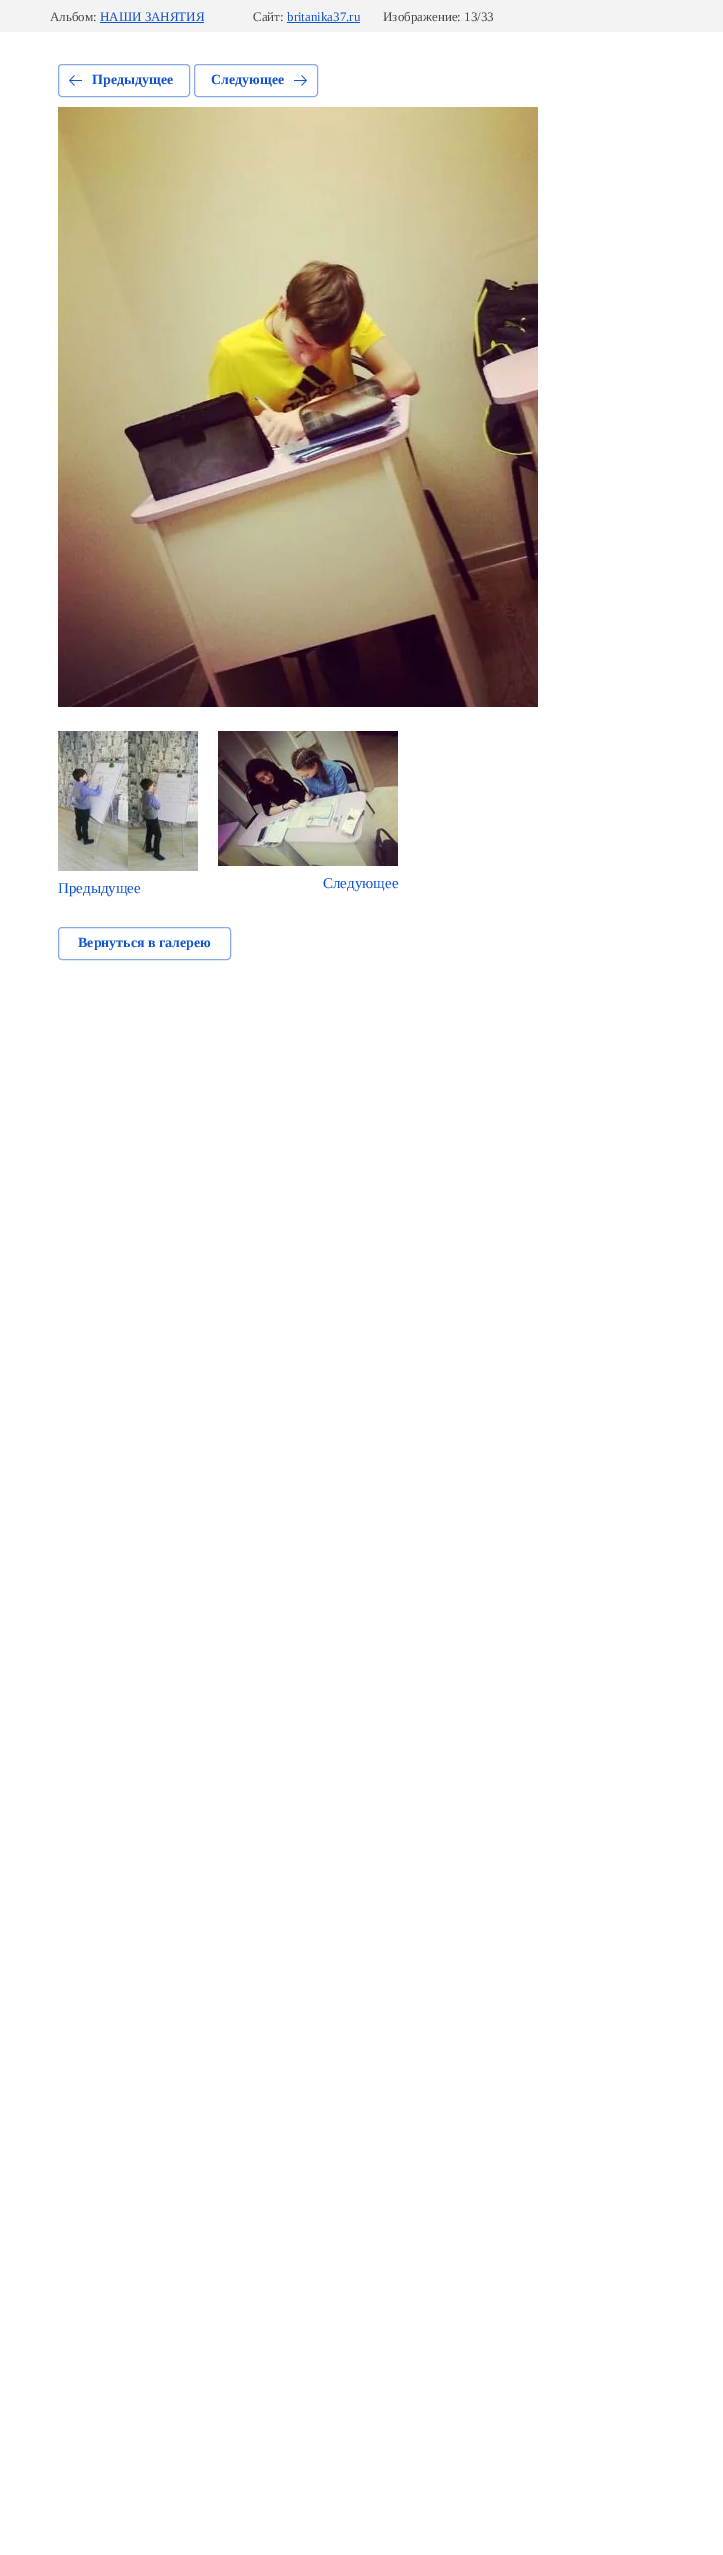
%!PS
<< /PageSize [723 2555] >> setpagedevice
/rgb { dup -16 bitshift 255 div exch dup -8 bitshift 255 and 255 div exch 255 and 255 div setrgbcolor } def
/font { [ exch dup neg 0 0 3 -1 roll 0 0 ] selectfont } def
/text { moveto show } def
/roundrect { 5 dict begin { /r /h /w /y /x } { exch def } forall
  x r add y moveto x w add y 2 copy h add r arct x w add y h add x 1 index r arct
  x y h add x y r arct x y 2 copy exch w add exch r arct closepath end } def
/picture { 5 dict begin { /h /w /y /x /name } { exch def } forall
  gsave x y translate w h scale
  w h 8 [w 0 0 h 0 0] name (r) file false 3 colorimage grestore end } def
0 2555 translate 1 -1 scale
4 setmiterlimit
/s1 { /LiberationSerif-Regular 13 font 16#484848 rgb } def
/s2 { /LiberationSerif-Regular 13 font 16#1155CC rgb } def
/s3 { /LiberationSerif-Bold 14 font 16#1155CC rgb } def
/s4 { /LiberationSerif-Regular 15 font 16#1155CC rgb } def
16#FFFFFF rgb
0 0 723 2555 rectfill
16#F3F3F3 rgb
0 0 723 32 rectfill
s1
(Альбом:) 50 21 text
s2
(НАШИ ЗАНЯТИЯ) 100 21 text
100 22 104 1 rectfill
s1
(Сайт:) 253 21 text
s2
(britanika37.ru) 287 21 text
287 22 73 1 rectfill
s1
(Изображение: 13/33) 383 21 text
16#88AAE6 rgb
58.5 64.5 131 32 3.5 roundrect stroke
(pic1.raw) 69 75 13 11 picture
s3
(Предыдущее) 92 84 text
16#88AAE6 rgb
194.5 64.5 123 32 3.5 roundrect stroke
s3
(Следующее) 211 84 text
(pic2.raw) 294 75 13 11 picture
(pic3.raw) 58 107 480 600 picture
(pic4.raw) 58 731 140 140 picture
s4
(Предыдущее) 58 893 text
(pic5.raw) 218 731 180 135 picture
(Следующее) 323 888 text
16#88AAE6 rgb
58.5 927.5 172 32 3.5 roundrect stroke
s3
(Вернуться в галерею) 78 947 text
showpage
